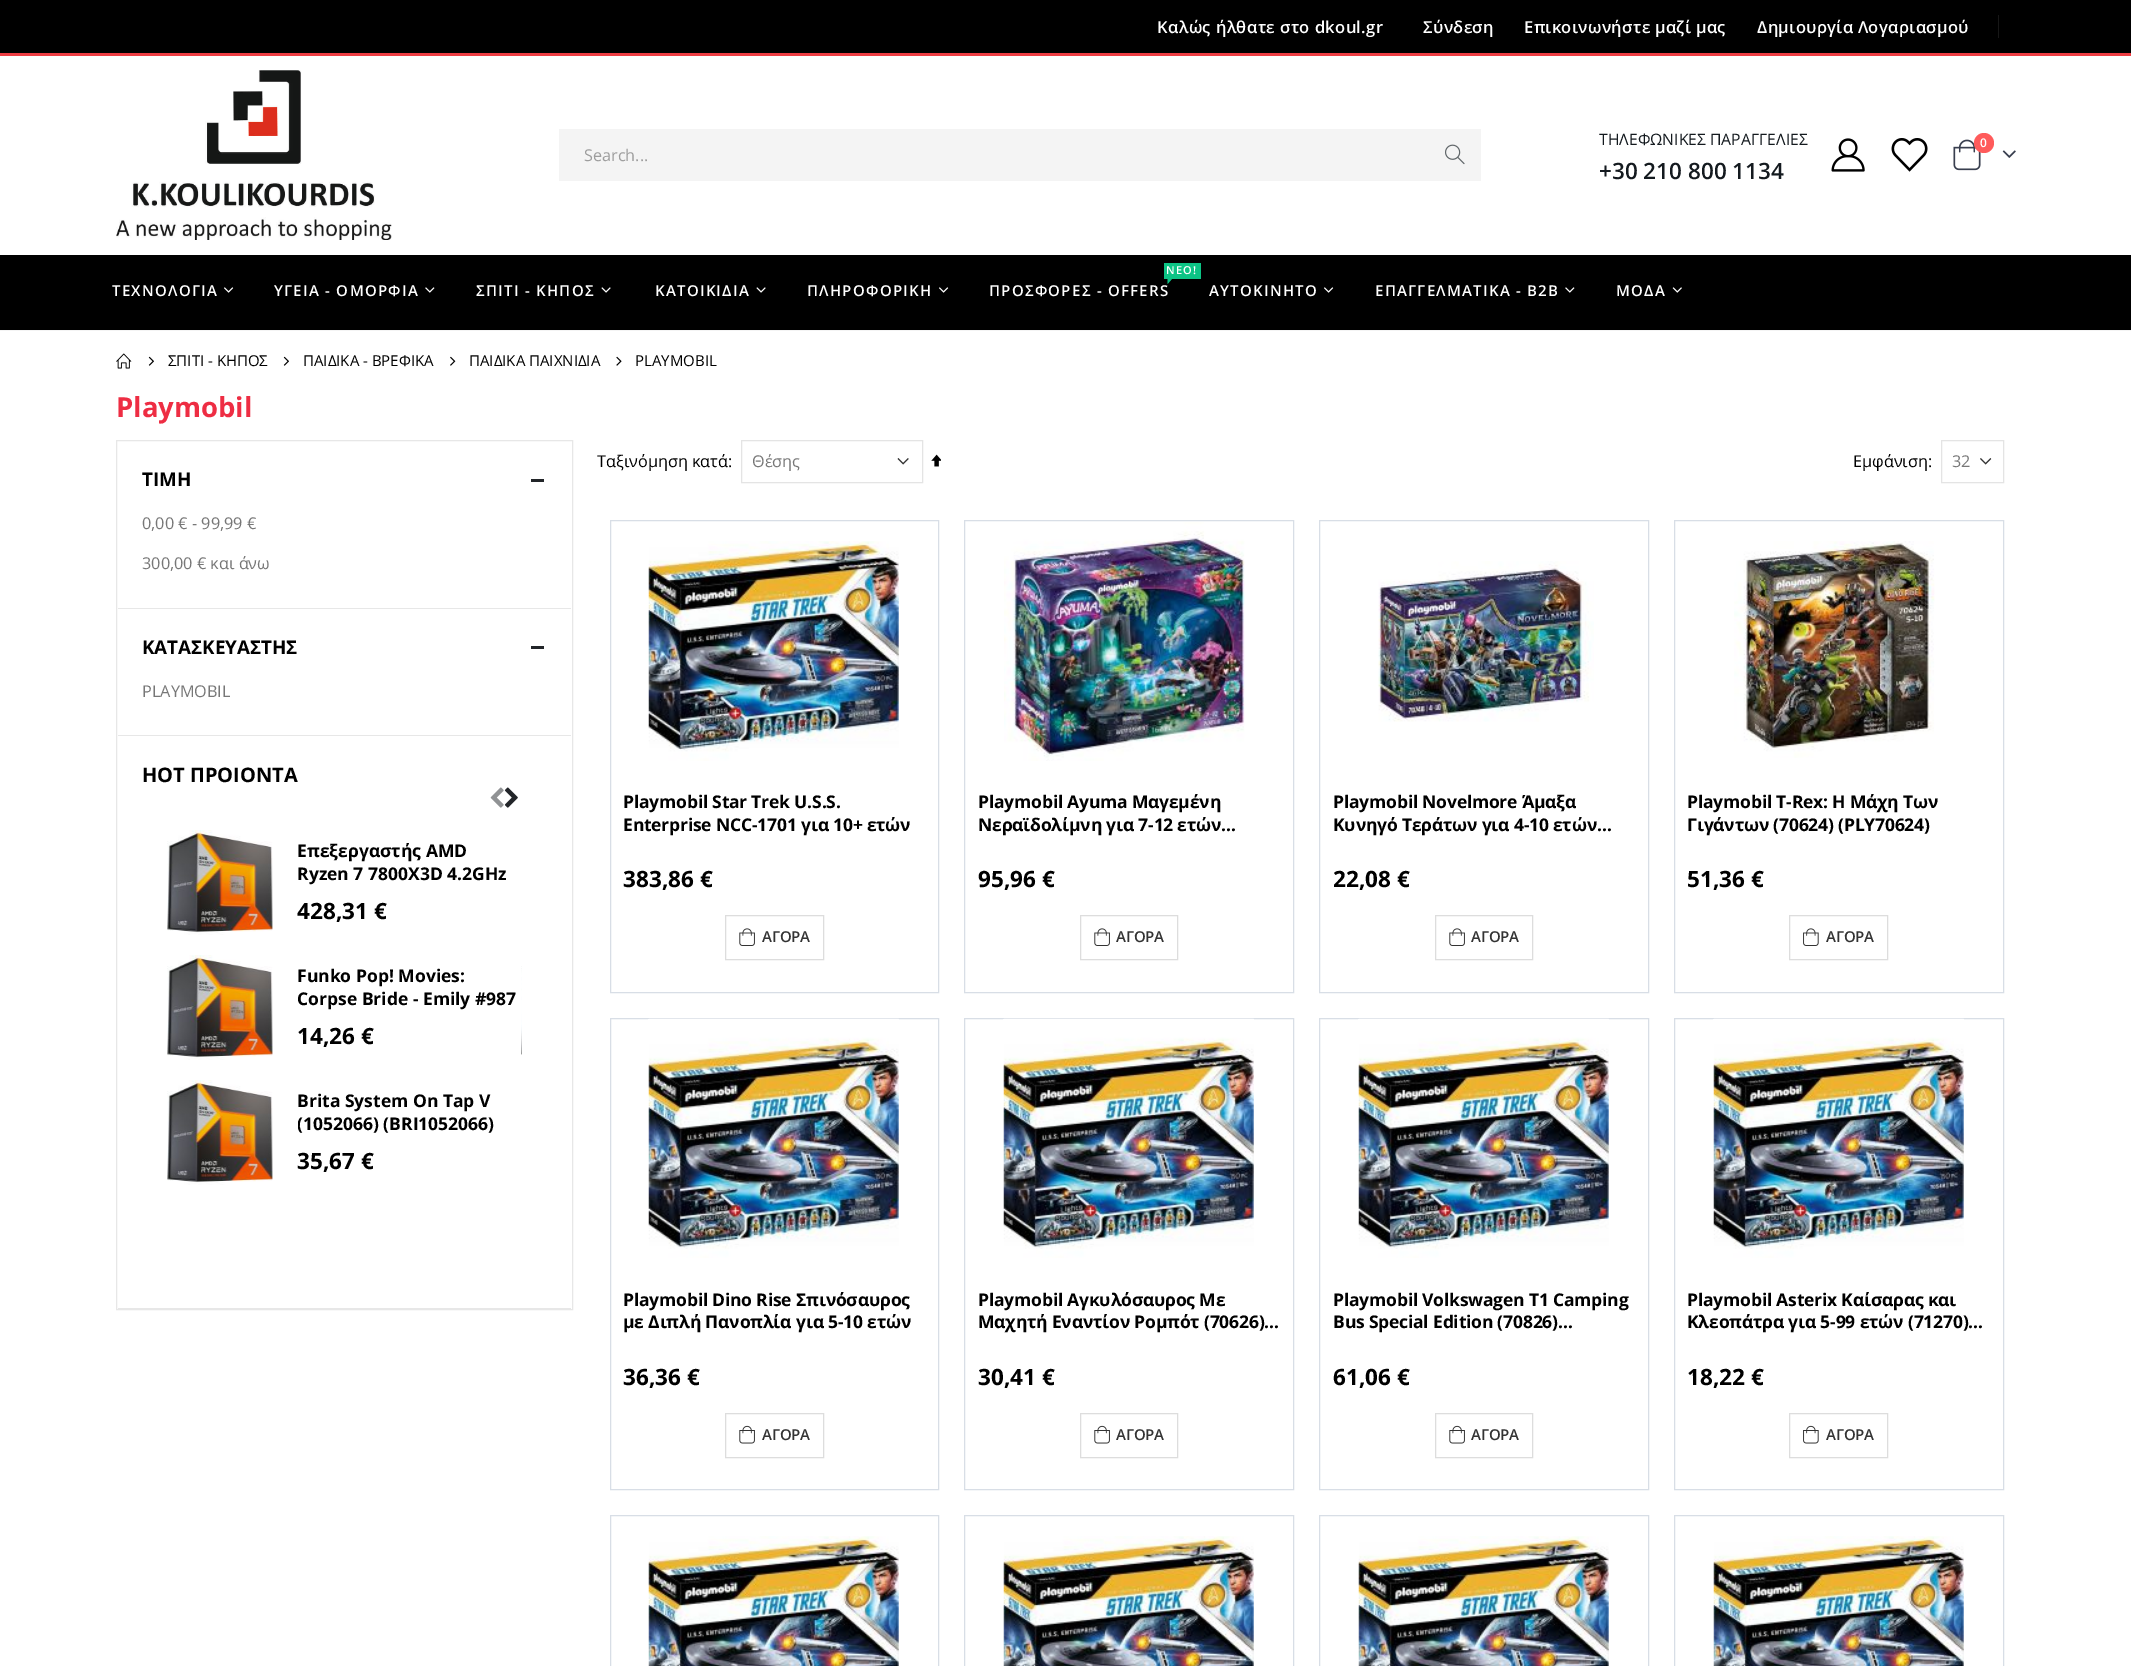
%!PS
<< /PageSize [2131 1666] >> setpagedevice
/rgb { dup -16 bitshift 255 div exch dup -8 bitshift 255 and 255 div exch 255 and 255 div setrgbcolor } def
/font { [ exch dup neg 0 0 3 -1 roll 0 0 ] selectfont } def
/text { moveto show } def
/circle { newpath 0 360 arc closepath } def
/picture { 5 dict begin { /h /w /y /x /name } { exch def } forall
  gsave x y translate w h scale
  w h 8 [w 0 0 h 0 0] name (r) file false 3 colorimage grestore end } def
0 1666 translate 1 -1 scale
4 setmiterlimit
/s1 { /OpenSans-Regular 16.25 font 16#9D9D9D rgb } def
/s2 { /OpenSans-Regular 15.75 font 16#141A1F rgb } def
/s3 { /OpenSans-SemiBold 22.5 font 16#141A1F rgb } def
/s4 { /OpenSans-SemiBold 12 font 16#FFFFFF rgb } def
/s5 { /OpenSans-Regular 15 font 16#000000 rgb } def
/s6 { /OpenSans-Bold 27.5 font 16#EE2D43 rgb } def
/s7 { /OpenSans-Bold 18.75 font 16#000000 rgb } def
/s8 { /OpenSans-Regular 16.25 font 16#777777 rgb } def
/s9 { /OpenSans-Bold 20 font 16#000000 rgb } def
/s10 { /OpenSans-Bold 17.5 font 16#000000 rgb } def
/s11 { /OpenSans-Bold 22.5 font 16#000000 rgb } def
/s12 { /OpenSans-Regular 16.25 font 16#000000 rgb } def
16#FFFFFF rgb
0 0 2131 1666 rectfill
16#F4F4F4 rgb
0 330 2131 1 rectfill
16#000000 rgb
0 0 2131 53 rectfill
16#EE3D43 rgb
0 53 2131 3 rectfill
/OpenSans-SemiBold 16.5 font
16#FFFFFF rgb
1157 33 moveto 0.4 0 (Καλώς ήλθατε στο dkoul.gr) ashow
1423 33 moveto 0.3 0 (Σύνδεση) ashow
1524 33 moveto 0.3 0 (Επικοινωνήστε μαζί μας) ashow
1757 33 moveto 0.3 0 (Δημιουργία Λογαριασμού) ashow
16#171717 rgb
1998 15 1 23 rectfill
(pic1.raw) 116 70 276 170 picture
16#F4F4F4 rgb
559 129 922 52 rectfill
s1
(Search...) 584 161 text
(pic2.raw) 1445 144 20 21 picture
s2
(ΤΗΛΕΦΩΝΙΚΕΣ ΠΑΡΑΓΓΕΛΙΕΣ) 1599 145 text
s3
(+30 210 800 1134) 1599 179 text
(pic3.raw) 1831 138 34 34 picture
(pic4.raw) 1891 138 37 34 picture
(pic5.raw) 1953 139 28 32 picture
16#FF5B5B rgb
1984 143 10 circle fill
s4
(0) 1980 147 text
(pic6.raw) 2002 150 14 8 picture
16#000000 rgb
0 255 2131 75 rectfill
/OpenSans-SemiBold 15 font
16#FFFFFF rgb
112 296 moveto 1.25 0 (ΤΕΧΝΟΛΟΓΙΑ) ashow
(pic7.raw) 224 287 10 6 picture
274 296 moveto 1.25 0 (ΥΓΕΙΑ - ΟΜΟΡΦΙΑ) ashow
(pic8.raw) 425 287 10 6 picture
476 296 moveto 1.25 0 (ΣΠΙΤΙ - ΚΗΠΟΣ) ashow
(pic9.raw) 601 287 10 6 picture
655 296 moveto 1.25 0 (ΚΑΤΟΙΚΙΔΙΑ) ashow
(pic9.raw) 756 287 10 6 picture
807 296 moveto 1.25 0 (ΠΛΗΡΟΦΟΡΙΚΗ) ashow
(pic7.raw) 939 287 10 6 picture
16#0CC485 rgb
1164 263 37 16 rectfill
/OpenSans-SemiBold 11 font
16#FFFFFF rgb
1166 274 moveto 1.25 0 (ΝΕΟ!) ashow
16#0CC485 rgb
1167.5 276 moveto 1175 276 lineto 1171 280 lineto closepath fill
1167.5 284 moveto 1167.5 276 lineto 1171 280 lineto closepath fill
/OpenSans-SemiBold 15 font
16#FFFFFF rgb
989 296 moveto 1.25 0 (ΠΡΟΣΦΟΡΕΣ - OFFERS) ashow
1209 296 moveto 1.25 0 (ΑΥΤΟΚΙΝΗΤΟ) ashow
(pic7.raw) 1324 287 10 6 picture
1375 296 moveto 1.25 0 (ΕΠΑΓΓΕΛΜΑΤΙΚΑ - B2B) ashow
(pic8.raw) 1565 287 10 6 picture
1616 296 moveto 1.25 0 (ΜΟΔΑ) ashow
(pic10.raw) 1672 287 10 6 picture
(pic11.raw) 116 353 16 16 picture
(pic12.raw) 148 356 6 10 picture
s5
(ΣΠΙΤΙ - ΚΗΠΟΣ) 168 366 text
(pic12.raw) 283 356 6 10 picture
(ΠΑΙΔΙΚΑ - ΒΡΕΦΙΚΑ) 303 366 text
(pic13.raw) 450 356 6 10 picture
(ΠΑΙΔΙΚΑ ΠΑΙΧΝΙΔΙΑ) 469 366 text
(pic14.raw) 616 356 6 10 picture
(PLAYMOBIL) 635 366 text
s6
(Playmobil) 116 417 text
16#E7E7E7 rgb
116.5 440.5 456 869 rectstroke
118 608 453 1 rectfill
s7
(ΤΙΜΗ) 142 486 text
16#222529 rgb
531 479 13 3 rectfill
s8
(0,00 € - 99,99 €) 142 529 text
(300,00 € και άνω) 142 569 text
16#E7E7E7 rgb
118 735 453 1 rectfill
s7
(ΚΑΤΑΣΚΕΥΑΣΤΗΣ) 142 654 text
16#222529 rgb
531 646 13 3 rectfill
s8
(PLAYMOBIL) 142 697 text
16#E7E7E7 rgb
118 1308 453 1 rectfill
s9
(HOT ΠΡΟΙΟΝΤΑ) 142 782 text
(pic15.raw) 490 787 14 21 picture
(pic16.raw) 504 787 14 21 picture
(pic17.raw) 167 830 106 105 picture
s10
(Επεξεργαστής AMD) 297 857 text
(Ryzen 7 7800X3D 4.2GHz) 297 880 text
s11
(428,31 €) 297 919 text
(pic17.raw) 167 955 106 105 picture
s10
(Funko Pop! Movies:) 297 982 text
(Corpse Bride - Emily #987) 297 1005 text
s11
(14,26 €) 297 1044 text
(pic17.raw) 167 1080 106 105 picture
s10
(Brita System On Tap V) 297 1107 text
gsave
298 1090 223 45 rectclip
(\(1052066\) \(BRI1052066\)) 297 1130 text
grestore
s11
(35,67 €) 297 1169 text
(pic18.raw) 521 966 1 89 picture
s12
(Ταξινόμηση κατά:) 597 467 text
(pic19.raw) 897 458 12 7 picture
16#E4E4E4 rgb
741.5 440.5 181 42 rectstroke
s8
(Θέσης) 752 467 text
(pic20.raw) 931 454 10 13 picture
s12
(Εμφάνιση:) 1853 467 text
(pic21.raw) 1980 458 12 7 picture
16#E4E4E4 rgb
1941.5 440.5 62 42 rectstroke
s8
(32) 1952 467 text
16#D8DEE6 rgb
610.5 520.5 328 472 rectstroke
(pic22.raw) 648 541 251 220 picture
/OpenSans-Bold 17.5 font
16#000000 rgb
623 808 moveto -0.2 0 (Playmobil Star Trek U.S.S.) ashow
623 831 moveto -0.2 0 (Enterprise NCC-1701 για 10+ ετών) ashow
s11
(383,86 €) 623 887 text
16#DDDDDD rgb
725.5 915.5 98 44 rectstroke
(pic23.raw) 739 928 16 18 picture
/OpenSans-SemiBold 15 font
16#333333 rgb
762 942 moveto -0.25 0 (ΑΓΟΡΑ) ashow
16#D8DEE6 rgb
964.5 520.5 329 472 rectstroke
(pic24.raw) 1004 522 241 239 picture
/OpenSans-Bold 17.5 font
16#000000 rgb
978 808 moveto -0.2 0 (Playmobil Ayuma Μαγεμένη) ashow
978 831 moveto -0.2 0 (Νεραϊδολίμνη για 7-12 ετών…) ashow
s11
(95,96 €) 978 887 text
16#DDDDDD rgb
1080.5 915.5 97 44 rectstroke
(pic23.raw) 1094 928 16 18 picture
/OpenSans-SemiBold 15 font
16#333333 rgb
1116 942 moveto -0.25 0 (ΑΓΟΡΑ) ashow
16#D8DEE6 rgb
1319.5 520.5 329 472 rectstroke
(pic25.raw) 1378 561 216 161 picture
/OpenSans-Bold 17.5 font
16#000000 rgb
1333 808 moveto -0.2 0 (Playmobil Novelmore Άμαξα) ashow
1333 831 moveto -0.2 0 (Κυνηγό Τεράτων για 4-10 ετών…) ashow
s11
(22,08 €) 1333 887 text
16#DDDDDD rgb
1435.5 915.5 97 44 rectstroke
(pic23.raw) 1449 928 16 18 picture
/OpenSans-SemiBold 15 font
16#333333 rgb
1471 942 moveto -0.25 0 (ΑΓΟΡΑ) ashow
16#D8DEE6 rgb
1674.5 520.5 329 472 rectstroke
(pic26.raw) 1734 541 201 217 picture
/OpenSans-Bold 17.5 font
16#000000 rgb
1687 808 moveto -0.2 0 (Playmobil T-Rex: Η Μάχη Των) ashow
1687 831 moveto -0.2 0 (Γιγάντων \(70624\) \(PLY70624\)) ashow
s11
(51,36 €) 1687 887 text
16#DDDDDD rgb
1789.5 915.5 98 44 rectstroke
(pic27.raw) 1803 928 16 18 picture
/OpenSans-SemiBold 15 font
16#333333 rgb
1826 942 moveto -0.25 0 (ΑΓΟΡΑ) ashow
16#D8DEE6 rgb
610.5 1018.5 328 471 rectstroke
(pic28.raw) 648 1018 251 240 picture
/OpenSans-Bold 17.5 font
16#000000 rgb
623 1306 moveto -0.2 0 (Playmobil Dino Rise Σπινόσαυρος) ashow
623 1328 moveto -0.2 0 (με Διπλή Πανοπλία για 5-10 ετών) ashow
s11
(36,36 €) 623 1385 text
16#DDDDDD rgb
725.5 1413.5 98 44 rectstroke
(pic29.raw) 739 1425 16 19 picture
/OpenSans-SemiBold 15 font
16#333333 rgb
762 1440 moveto -0.25 0 (ΑΓΟΡΑ) ashow
16#D8DEE6 rgb
964.5 1018.5 329 471 rectstroke
(pic30.raw) 1003 1018 251 240 picture
/OpenSans-Bold 17.5 font
16#000000 rgb
978 1306 moveto -0.2 0 (Playmobil Αγκυλόσαυρος Με) ashow
978 1328 moveto -0.2 0 (Μαχητή Εναντίον Ρομπότ \(70626\)…) ashow
s11
(30,41 €) 978 1385 text
16#DDDDDD rgb
1080.5 1413.5 97 44 rectstroke
(pic29.raw) 1094 1425 16 19 picture
/OpenSans-SemiBold 15 font
16#333333 rgb
1116 1440 moveto -0.25 0 (ΑΓΟΡΑ) ashow
16#D8DEE6 rgb
1319.5 1018.5 329 471 rectstroke
(pic31.raw) 1358 1018 251 240 picture
/OpenSans-Bold 17.5 font
16#000000 rgb
1333 1306 moveto -0.2 0 (Playmobil Volkswagen T1 Camping) ashow
1333 1328 moveto -0.2 0 (Bus Special Edition \(70826\)…) ashow
s11
(61,06 €) 1333 1385 text
16#DDDDDD rgb
1435.5 1413.5 97 44 rectstroke
(pic29.raw) 1449 1425 16 19 picture
/OpenSans-SemiBold 15 font
16#333333 rgb
1471 1440 moveto -0.25 0 (ΑΓΟΡΑ) ashow
16#D8DEE6 rgb
1674.5 1018.5 329 471 rectstroke
(pic32.raw) 1713 1018 251 240 picture
/OpenSans-Bold 17.5 font
16#000000 rgb
1687 1306 moveto -0.2 0 (Playmobil Asterix Καίσαρας και) ashow
1687 1328 moveto -0.2 0 (Κλεοπάτρα για 5-99 ετών \(71270\)…) ashow
s11
(18,22 €) 1687 1385 text
16#DDDDDD rgb
1789.5 1413.5 98 44 rectstroke
(pic33.raw) 1803 1425 16 19 picture
/OpenSans-SemiBold 15 font
16#333333 rgb
1826 1440 moveto -0.25 0 (ΑΓΟΡΑ) ashow
16#D8DEE6 rgb
610.5 1515.5 328 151 rectstroke
(pic34.raw) 648 1536 251 130 picture
964.5 1515.5 329 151 rectstroke
(pic35.raw) 1003 1536 251 130 picture
1319.5 1515.5 329 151 rectstroke
(pic36.raw) 1358 1536 251 130 picture
1674.5 1515.5 329 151 rectstroke
(pic37.raw) 1713 1536 251 130 picture
showpage
